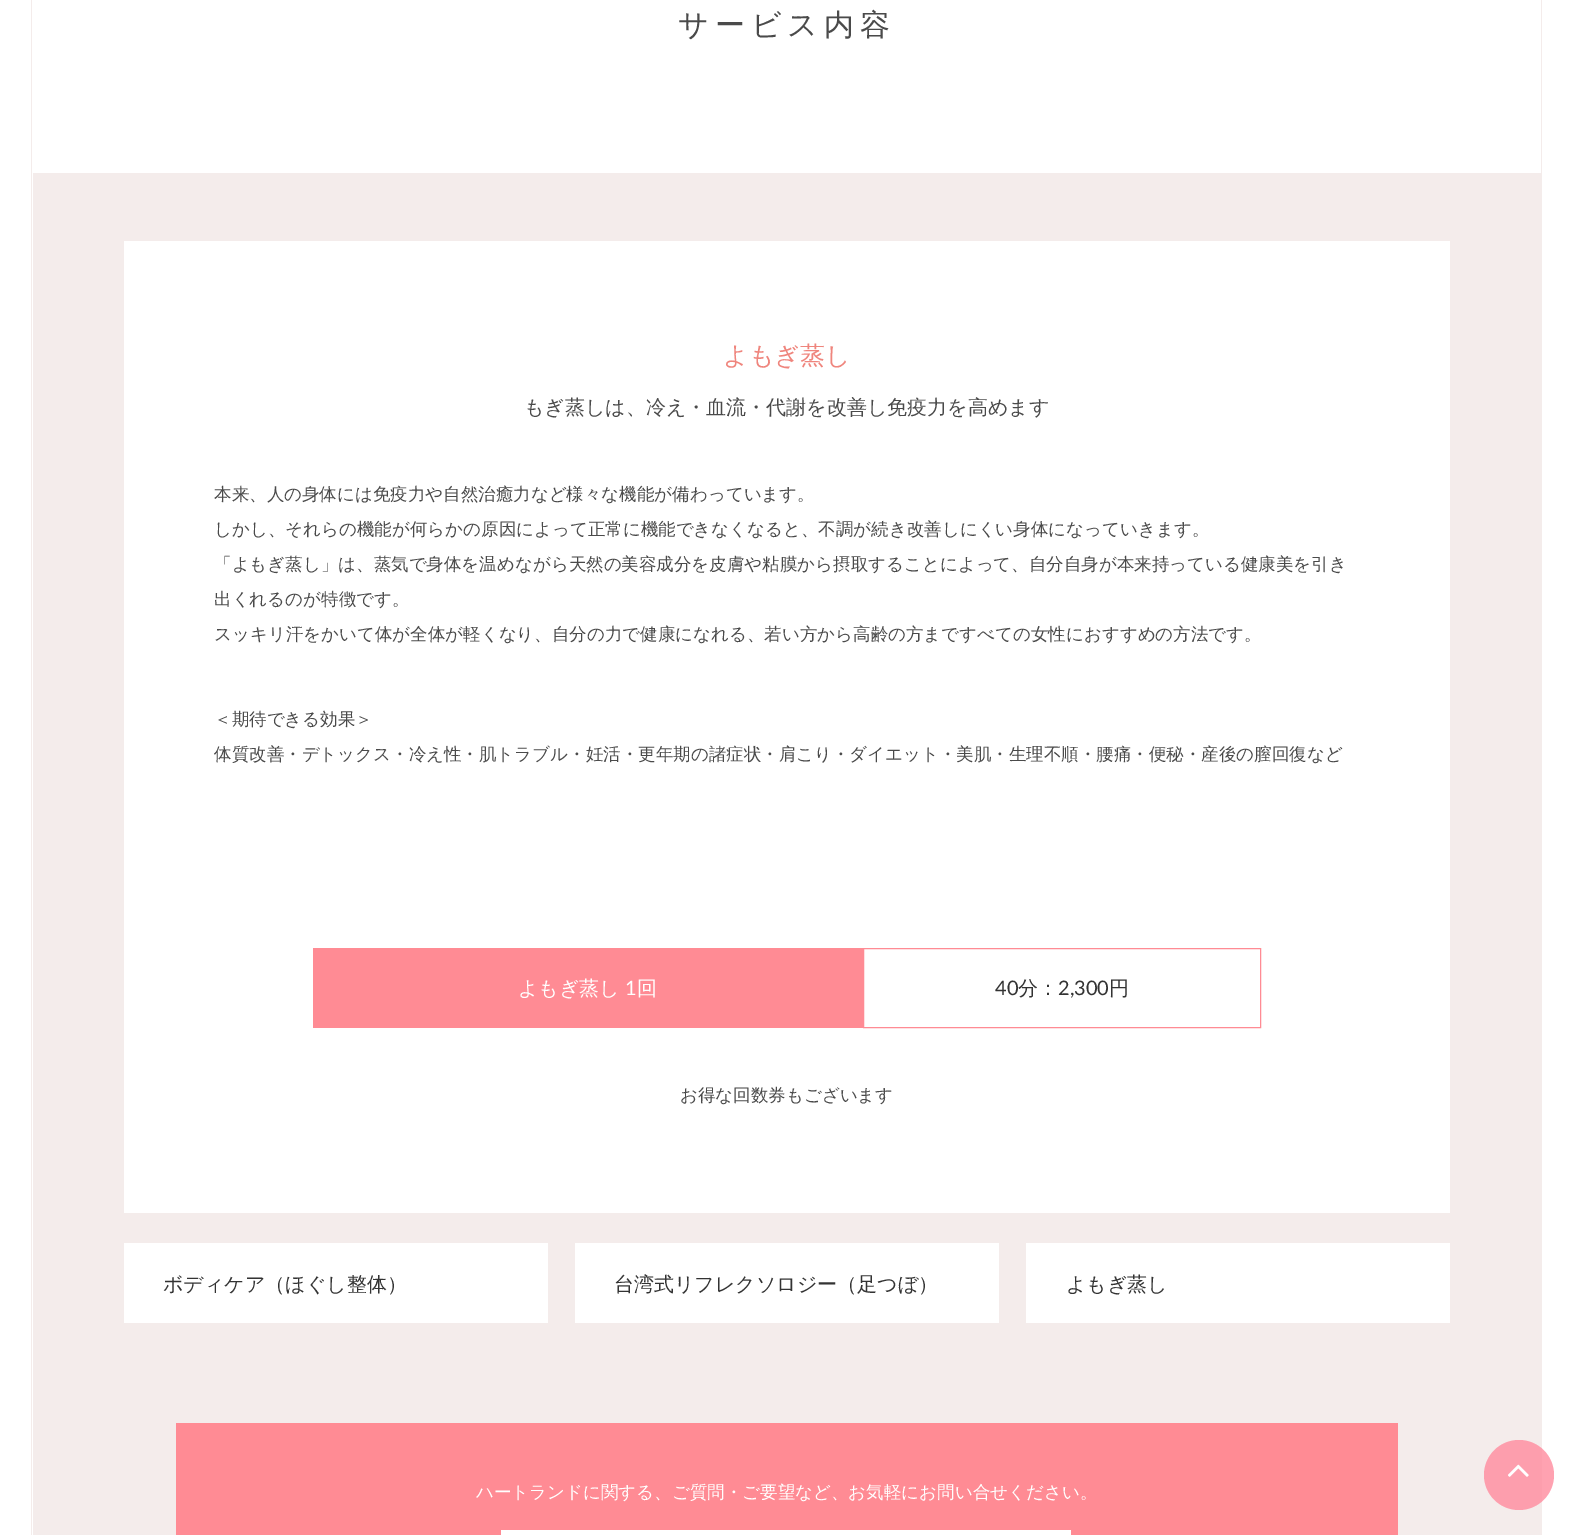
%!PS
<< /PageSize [1573 1535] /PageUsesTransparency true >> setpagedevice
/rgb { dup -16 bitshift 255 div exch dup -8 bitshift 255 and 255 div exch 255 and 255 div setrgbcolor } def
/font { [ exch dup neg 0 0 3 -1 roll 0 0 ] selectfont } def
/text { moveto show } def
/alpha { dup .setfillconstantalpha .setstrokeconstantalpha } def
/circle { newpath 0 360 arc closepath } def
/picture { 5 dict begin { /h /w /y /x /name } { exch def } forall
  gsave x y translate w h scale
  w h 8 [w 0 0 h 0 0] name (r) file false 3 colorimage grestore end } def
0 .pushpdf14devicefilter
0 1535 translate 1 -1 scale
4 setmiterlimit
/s1 { /WenQuanYiZenHei-Medium 25 font 16#EF857D rgb } def
/s2 { /WenQuanYiZenHei-Medium 20 font 16#4A4A4A rgb } def
/s3 { /WenQuanYiZenHei-Medium 17.5 font 16#4A4A4A rgb } def
/s4 { /WenQuanYiZenHei-Medium 20 font 16#FFFFFF rgb } def
/s5 { /Lato-Regular 20 font 16#FFFFFF rgb } def
/s6 { /Lato-Regular 20 font 16#333333 rgb } def
/s7 { /WenQuanYiZenHei-Medium 20 font 16#333333 rgb } def
/s8 { /WenQuanYiZenHei-Medium 17.5 font 16#FFFFFF rgb } def
16#FFFFFF rgb
0 0 1573 1535 rectfill
16#F4ECEB rgb
1541 0 1 1535 rectfill
31 0 1 1535 rectfill
33 173 1508 1362 rectfill
/WenQuanYiZenHei-Medium 30 font
16#4A4A4A rgb
678 35 moveto 6 0 (サービス内容) ashow
16#FFFFFF rgb
124 241 1326 972 rectfill
s1
(よもぎ蒸し) 723 364 text
s2
(もぎ蒸しは、冷え・血流・代謝を改善し免疫力を高めます) 524 414 text
s3
(本来、人の身体には免疫力や自然治癒力など様々な機能が備わっています。) 214 500 text
(しかし、それらの機能が何らかの原因によって正常に機能できなくなると、不調が続き改善しにくい身体になっていきます。) 214 535 text
(「よもぎ蒸し」は、蒸気で身体を温めながら天然の美容成分を皮膚や粘膜から摂取することによって、自分自身が本来持っている健康美を引き) 214 570 text
(出くれるのが特徴です。) 214 605 text
(スッキリ汗をかいて体が全体が軽くなり、自分の力で健康になれる、若い方から高齢の方まですべての女性におすすめの方法です。) 214 640 text
(＜期待できる効果＞) 214 725 text
(体質改善・デトックス・冷え性・肌トラブル・妊活・更年期の諸症状・肩こり・ダイエット・美肌・生理不順・腰痛・便秘・産後の膣回復など) 214 760 text
16#FF8B94 rgb
313 948 550 80 rectfill
s4
(よもぎ蒸し) 518 995 text
s5
(1) 625 995 text
s4
(回) 637 995 text
16#FF8B94 rgb
863.5 948.5 397 79 rectstroke
s6
(40) 995 995 text
s7
(分：) 1018 995 text
s6
(2,300) 1058 995 text
s7
(円) 1109 995 text
s3
(お得な回数券もございます) 680 1101 text
16#FFFFFF rgb
124 1243 424 80 rectfill
s7
(ボディケア（ほぐし整体）) 163 1291 text
16#FFFFFF rgb
575 1243 424 80 rectfill
s7
(台湾式リフレクソロジー（足つぼ）) 614 1291 text
16#FFFFFF rgb
1026 1243 424 80 rectfill
s7
(よもぎ蒸し) 1066 1291 text
16#FF8B94 rgb
176 1423 1222 112 rectfill
s8
(ハートランドに関する、ご質問・ご要望など、お気軽にお問い合せください。) 476 1498 text
501 1530 570 5 rectfill
0.8 alpha
16#FF8B9E rgb
1519 1475 35 circle fill
1 alpha
(pic1.raw) 1508 1464 21 13 picture
.poppdf14devicefilter showpage
